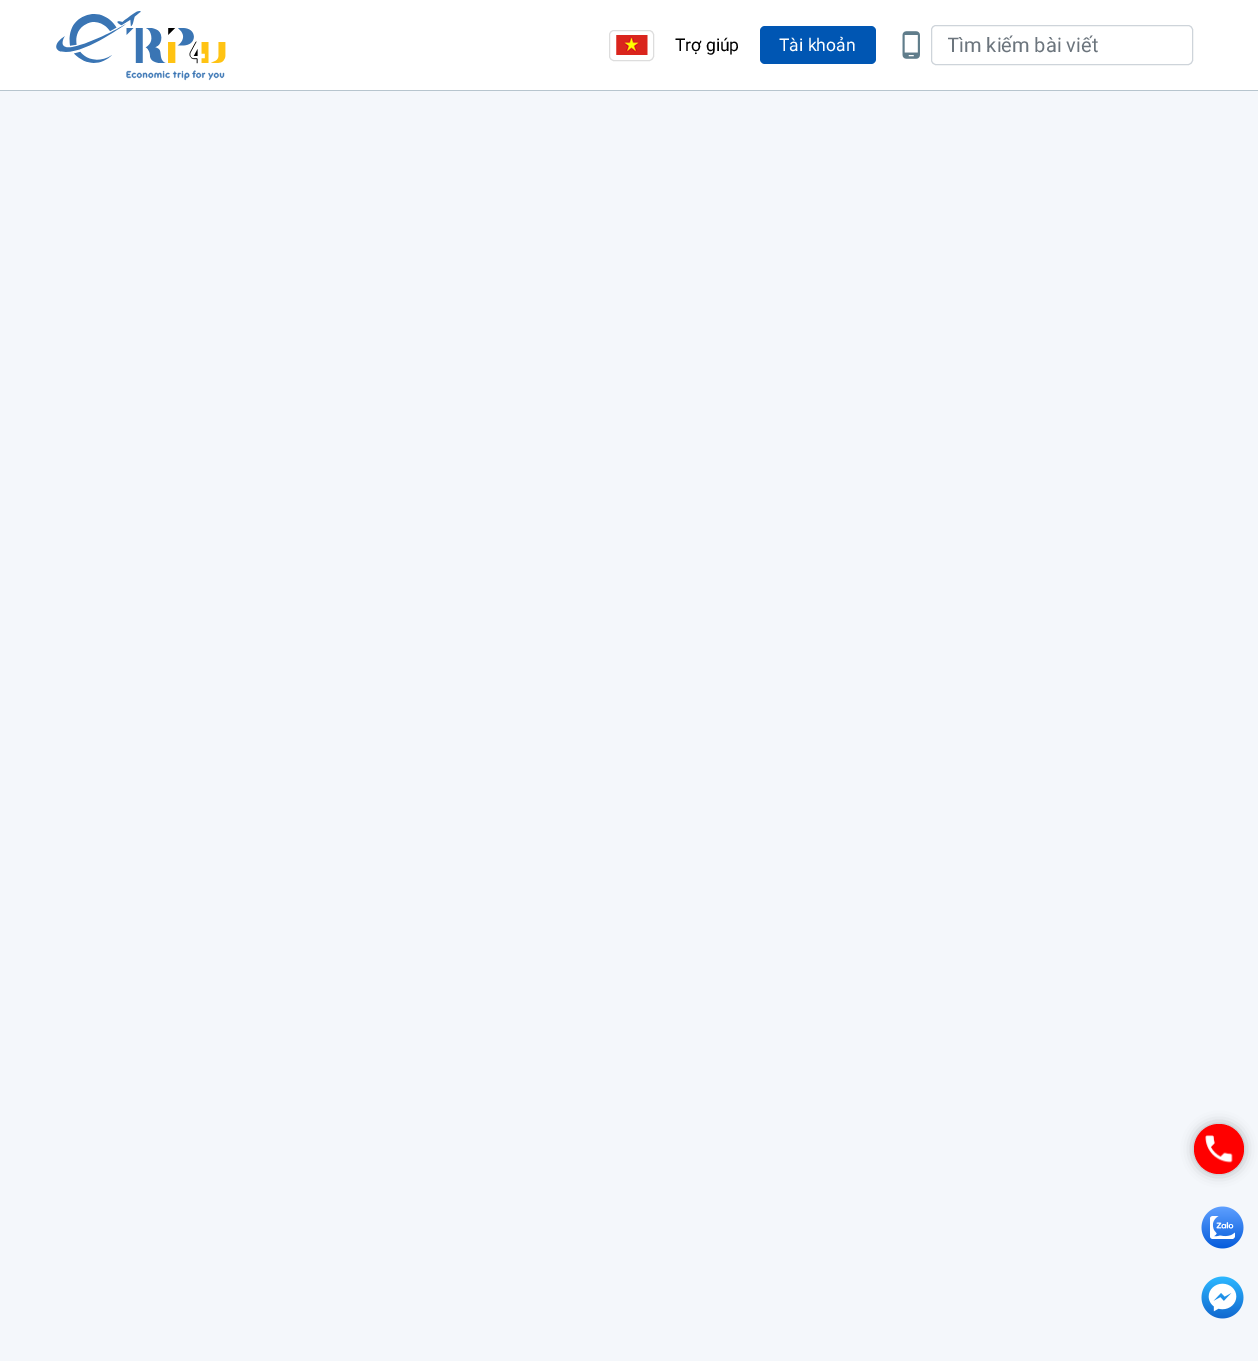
%!PS
<< /PageSize [1258 1361] /PageUsesTransparency true >> setpagedevice
/rgb { dup -16 bitshift 255 div exch dup -8 bitshift 255 and 255 div exch 255 and 255 div setrgbcolor } def
/font { [ exch dup neg 0 0 3 -1 roll 0 0 ] selectfont } def
/text { moveto show } def
/alpha { dup .setfillconstantalpha .setstrokeconstantalpha } def
/circle { newpath 0 360 arc closepath } def
/roundrect { 5 dict begin { /r /h /w /y /x } { exch def } forall
  x r add y moveto x w add y 2 copy h add r arct x w add y h add x 1 index r arct
  x y h add x y r arct x y 2 copy exch w add exch r arct closepath end } def
/shadow { 12 dict begin { /a /b /q /h /w /y /x } { exch def } forall gsave /was 0 def
  9 -2 -9 { dup b mul 4 div /e exch def 1 sub .425 mul 2.718 exch exp 1 add a .99 .min exch div /now exch def
    1 1 now sub 1 was sub div sub alpha /was now def
    w h .min e 2 mul add 0 gt { x e sub y e sub w e 2 mul add h e 2 mul add
      q e add b .6 mul add w h .min 2 div e add .min 0 .max roundrect fill } if } for grestore end } def
/picture { 5 dict begin { /h /w /y /x /name } { exch def } forall
  gsave x y translate w h scale
  w h 8 [w 0 0 h 0 0] name (r) file false 3 colorimage grestore end } def
0 .pushpdf14devicefilter
0 1361 translate 1 -1 scale
4 setmiterlimit
/s1 { /Roboto-Regular 17.5 font 16#000000 rgb } def
/s2 { /Roboto-Regular 17.5 font 16#FFFFFF rgb } def
/s3 { /Roboto-Regular 20 font 16#6C757D rgb } def
16#F4F7FB rgb
0 0 1258 1361 rectfill
16#B7C5CE rgb
0 90 1258 1 rectfill
16#FFFFFF rgb
0 0 1258 90 rectfill
(pic1.raw) 56 11 170 70 picture
16#DDDDDD rgb
609.5 30.5 44 30 4.5 roundrect stroke
(pic2.raw) 616 35 32 20 picture
s1
(Trợ giúp) 675 51 text
16#0056B3 rgb
760 26 116 38 5 roundrect fill
s2
(Tài khoản) 779 51 text
(pic3.raw) 902 31 18 28 picture
16#CED4DA rgb
931.5 25.5 261 39 4.5 roundrect stroke
gsave
948 34 228 24 rectclip
s3
(Tìm kiếm bài viết) 947 52 text
grestore
16#000000 rgb
1194 1124 50 50 25 6 0.3 shadow
16#FF0000 rgb
1219 1149 25 circle fill
(pic4.raw) 1205 1135 28 28 picture
(pic5.raw) 1201 1206 43 43 picture
(pic6.raw) 1201 1276 43 43 picture
.poppdf14devicefilter showpage
